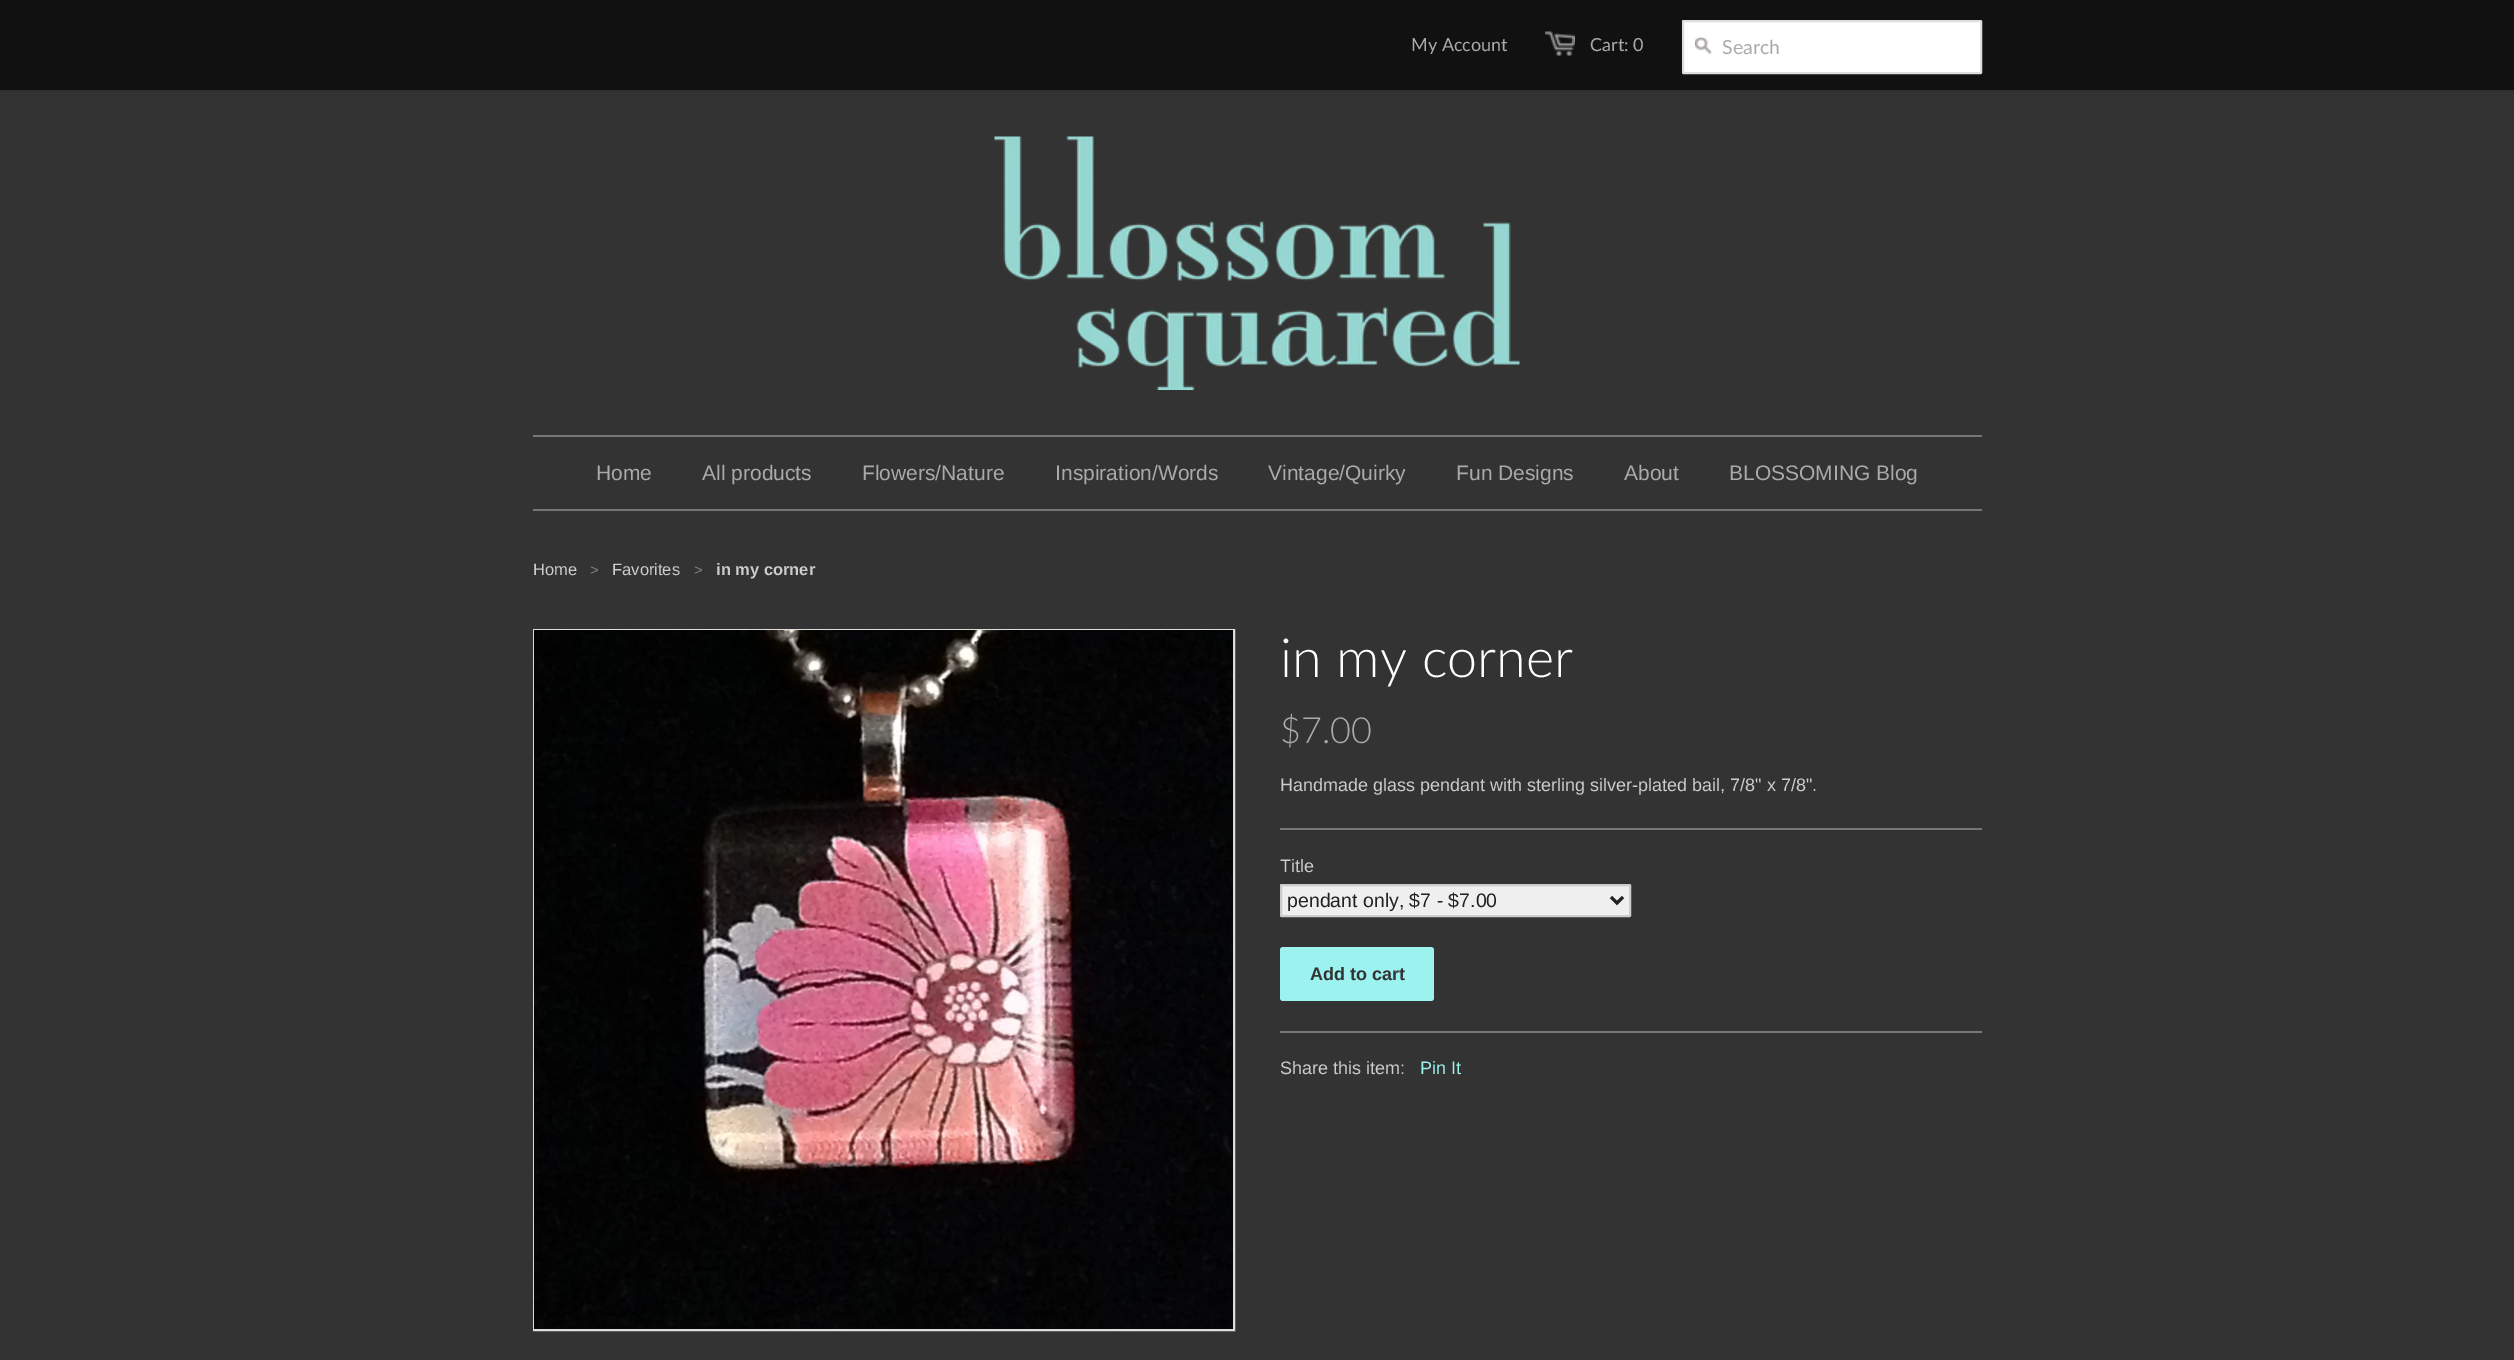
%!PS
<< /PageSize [2514 1360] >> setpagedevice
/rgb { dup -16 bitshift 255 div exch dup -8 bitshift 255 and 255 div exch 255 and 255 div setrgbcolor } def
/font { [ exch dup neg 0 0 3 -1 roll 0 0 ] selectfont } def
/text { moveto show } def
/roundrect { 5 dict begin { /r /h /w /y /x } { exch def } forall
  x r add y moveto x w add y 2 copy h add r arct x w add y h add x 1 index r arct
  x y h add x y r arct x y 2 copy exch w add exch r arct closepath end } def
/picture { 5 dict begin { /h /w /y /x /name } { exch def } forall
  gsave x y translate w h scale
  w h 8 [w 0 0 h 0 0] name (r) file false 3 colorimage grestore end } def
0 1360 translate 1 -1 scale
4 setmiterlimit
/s1 { /Lato-Regular 18 font 16#AAAAAA rgb } def
/s2 { /Lato-Regular 19.5 font 16#AAAAAA rgb } def
/s3 { /LiberationSans-Regular 21 font 16#AAAAAA rgb } def
/s4 { /LiberationSans-Regular 16.5 font 16#CCCCCC rgb } def
/s5 { /LiberationSans-Regular 15 font 16#808080 rgb } def
/s6 { /LiberationSans-Bold 16.5 font 16#CCCCCC rgb } def
/s7 { /Lato-Light 54 font 16#FFFFFF rgb } def
/s8 { /Lato-Light 36 font 16#AAAAAA rgb } def
/s9 { /LiberationSans-Regular 18 font 16#CCCCCC rgb } def
/s10 { /LiberationSans-Regular 19.5 font 16#222222 rgb } def
/s11 { /LiberationSans-Bold 18 font 16#333333 rgb } def
/s12 { /LiberationSans-Regular 18 font 16#9BF2EF rgb } def
16#333333 rgb
0 0 2514 1360 rectfill
16#111111 rgb
0 0 2514 90 rectfill
16#2F2F2F rgb
0 90 2514 2 rectfill
s1
(My Account) 1411 51 text
(pic1.raw) 1545 31 30 25 picture
(Cart: 0) 1590 51 text
16#FFFFFF rgb
1683 21 298 52 0.5 roundrect gsave fill grestore
16#DDDDDD rgb
2 setlinewidth
stroke
(pic2.raw) 1695 37 17 17 picture
s2
(Search) 1722 54 text
(pic3.raw) 994 136 526 254 picture
16#777777 rgb
533 435 1449 2 rectfill
533 509 1449 2 rectfill
s3
(Home) 596 480 text
(All products) 702 480 text
(Flowers/Nature) 862 480 text
(Inspiration/Words) 1055 480 text
(Vintage/Quirky) 1268 480 text
(Fun Designs) 1456 480 text
(About) 1624 480 text
(BLOSSOMING Blog) 1729 480 text
s4
(Home) 533 575 text
s5
(>) 590 575 text
s4
(Favorites) 612 575 text
s5
(>) 694 575 text
s6
(in my corner) 716 575 text
16#DDDDDD rgb
534 630 700 700 rectstroke
(pic4.raw) 534 630 699 699 picture
s7
(in my corner) 1280 677 text
s8
($7.00) 1280 743 text
s9
(Handmade glass pendant with sterling silver-plated bail, 7/8" x 7/8".) 1280 791 text
16#777777 rgb
1280 828 702 2 rectfill
1280 1031 702 2 rectfill
s9
(Title) 1280 872 text
16#EFEFEF rgb
1281 885 349 31 0.5 roundrect gsave fill grestore
16#CCCCCC rgb
stroke
16#222222 rgb
3 setlinewidth
1611 897 moveto 1617 903 lineto 1623 897 lineto stroke
s10
(pendant only, $7 - $7.00) 1287 907 text
16#9BF2EF rgb
1280 947 154 54 3 roundrect fill
s11
(Add to cart) 1310 980 text
s9
(Share this item:) 1280 1074 text
s12
(Pin It) 1420 1074 text
showpage
